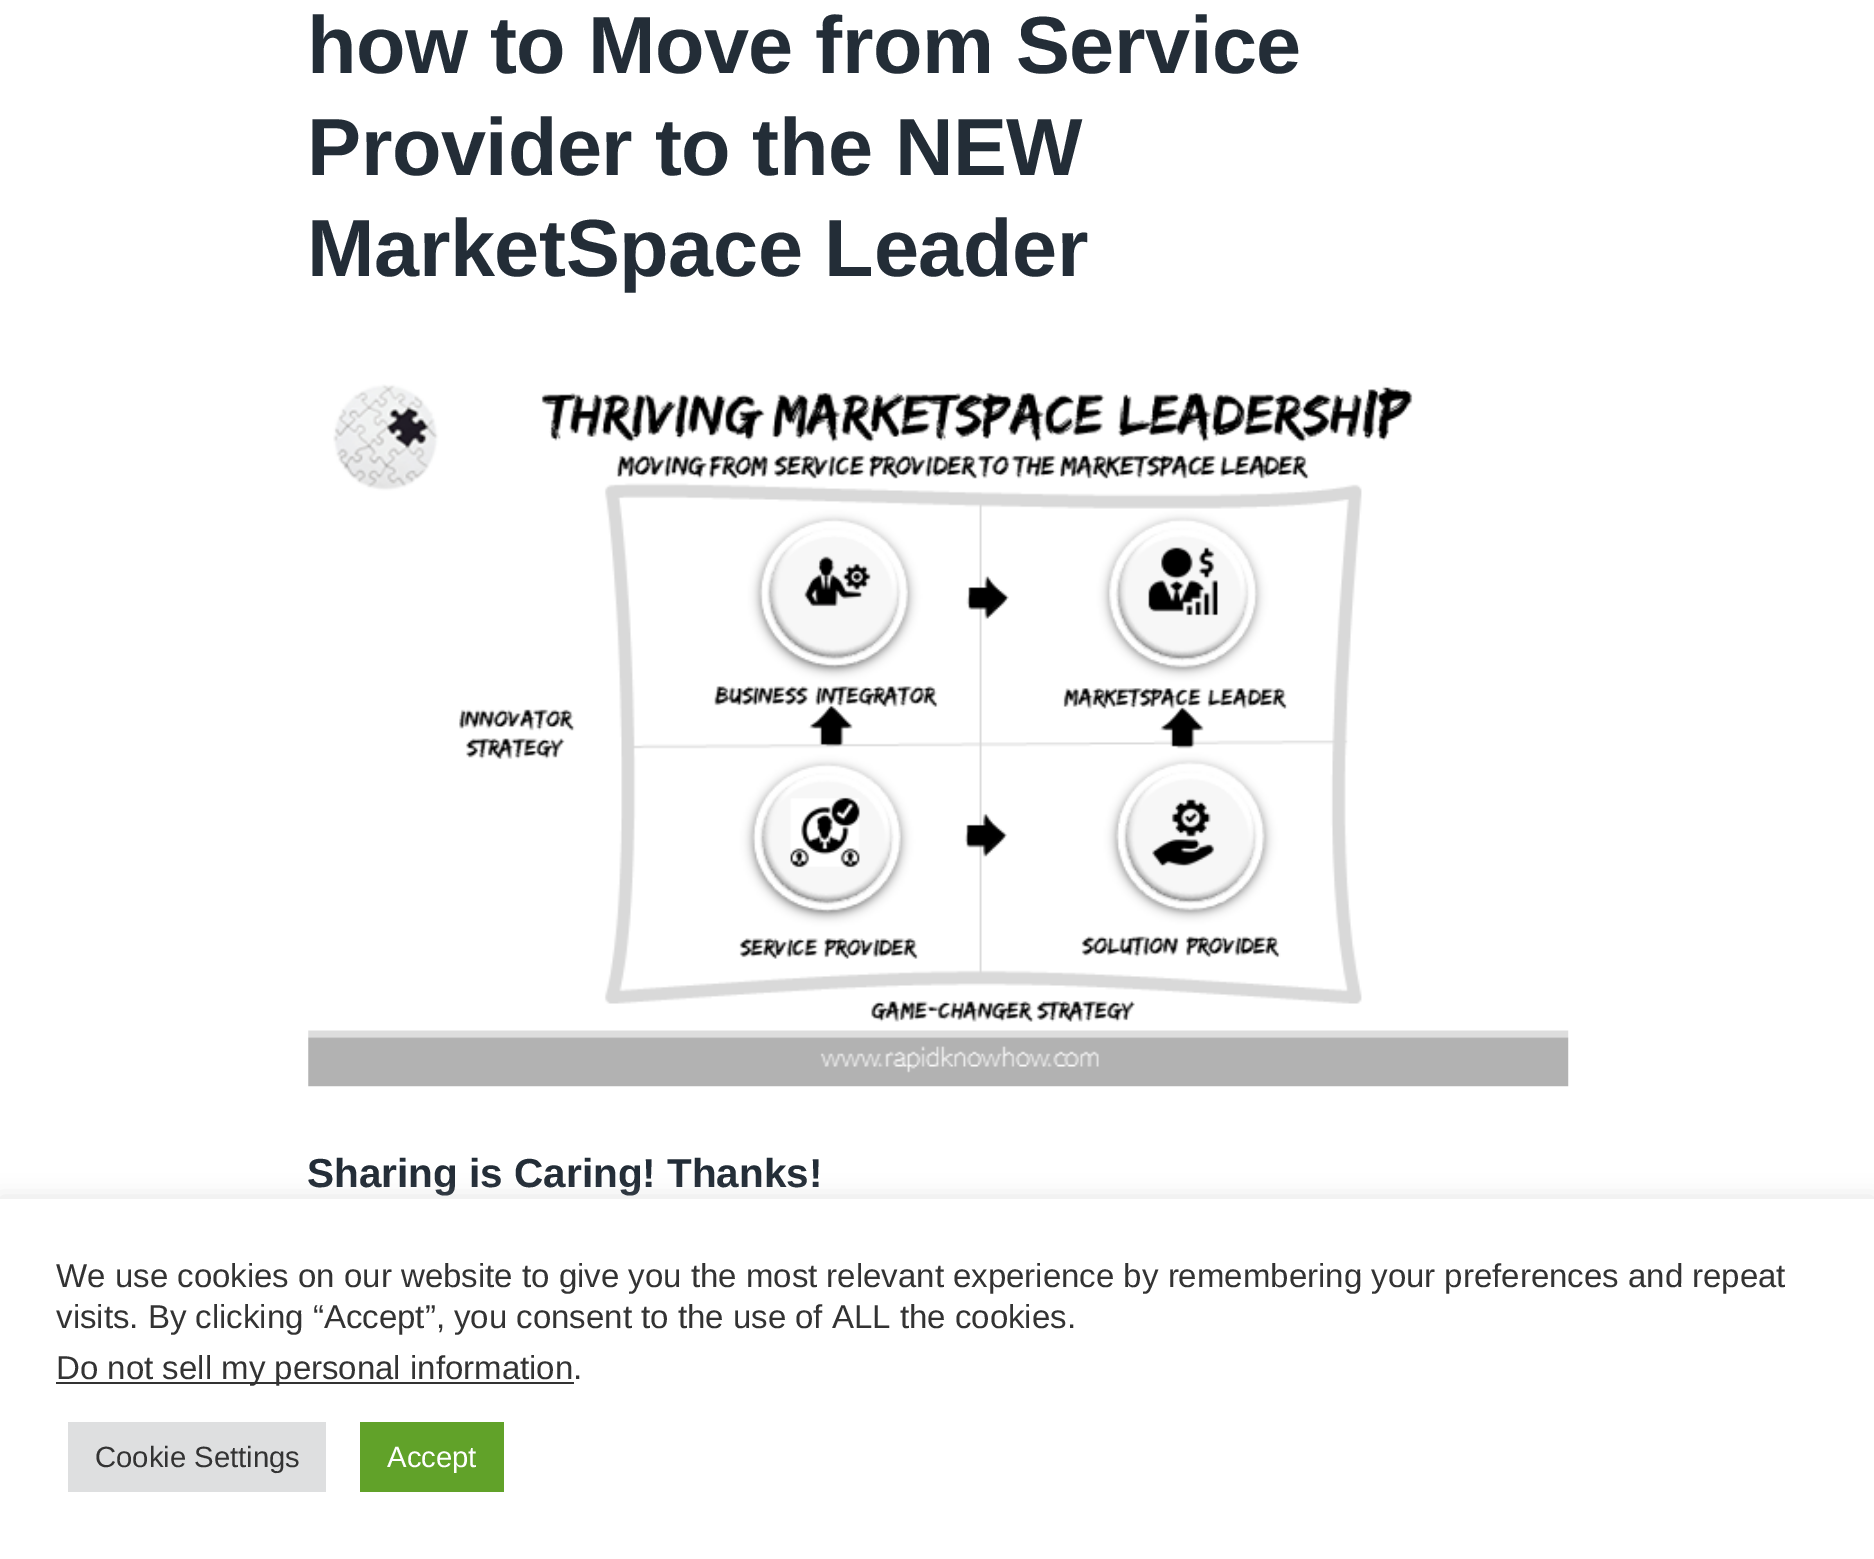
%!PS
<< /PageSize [1874 1559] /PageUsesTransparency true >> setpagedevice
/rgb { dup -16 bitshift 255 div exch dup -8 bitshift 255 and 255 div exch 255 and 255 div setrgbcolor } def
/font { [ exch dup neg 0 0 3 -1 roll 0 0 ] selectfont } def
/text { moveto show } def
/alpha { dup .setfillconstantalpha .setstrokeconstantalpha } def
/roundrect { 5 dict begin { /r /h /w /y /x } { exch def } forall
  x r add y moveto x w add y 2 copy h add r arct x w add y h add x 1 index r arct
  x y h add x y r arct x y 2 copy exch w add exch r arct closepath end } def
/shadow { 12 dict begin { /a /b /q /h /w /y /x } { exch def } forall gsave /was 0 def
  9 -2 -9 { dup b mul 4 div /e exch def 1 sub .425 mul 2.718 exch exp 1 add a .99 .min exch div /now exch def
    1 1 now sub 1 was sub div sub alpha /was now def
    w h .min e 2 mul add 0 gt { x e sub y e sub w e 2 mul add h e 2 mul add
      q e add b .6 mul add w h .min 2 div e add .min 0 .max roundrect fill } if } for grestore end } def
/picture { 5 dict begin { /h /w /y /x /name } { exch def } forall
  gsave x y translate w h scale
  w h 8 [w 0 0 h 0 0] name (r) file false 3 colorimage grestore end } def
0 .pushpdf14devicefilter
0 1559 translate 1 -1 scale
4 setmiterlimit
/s1 { /LiberationSans-Bold 40.5 font 16#232D37 rgb } def
/s2 { /LiberationSans-Regular 33 font 16#333333 rgb } def
/s3 { /LiberationSans-Regular 29.25 font 16#333333 rgb } def
/s4 { /LiberationSans-Regular 29.25 font 16#FFFFFF rgb } def
16#FFFFFF rgb
0 0 1874 1559 rectfill
/LiberationSans-Bold 81 font
16#232D37 rgb
307 73 moveto -0.4 0 (how to Move from Service) ashow
307 175 moveto -0.4 0 (Provider to the NEW) ashow
307 276 moveto -0.4 0 (MarketSpace Leader) ashow
(pic1.raw) 308 384 1261 703 picture
s1
(Sharing is Caring! Thanks!) 307 1187 text
16#ACABAB rgb
0 1197 1874 360 0 11 0.3 shadow
16#FFFFFF rgb
0 1199 1874 360 rectfill
s2
(We use cookies on our website to give you the most relevant experience by remembering your preferences and repeat) 56 1287 text
(visits. By clicking “Accept”, you consent to the use of ALL the cookies.) 56 1328 text
56 1382 518 2 rectfill
(Do not sell my personal information) 56 1379 text
(.) 573 1379 text
16#DEDFE0 rgb
68 1422 258 70 rectfill
s3
(Cookie Settings) 95 1467 text
16#61A229 rgb
360 1422 144 70 rectfill
s4
(Accept) 387 1467 text
.poppdf14devicefilter showpage
